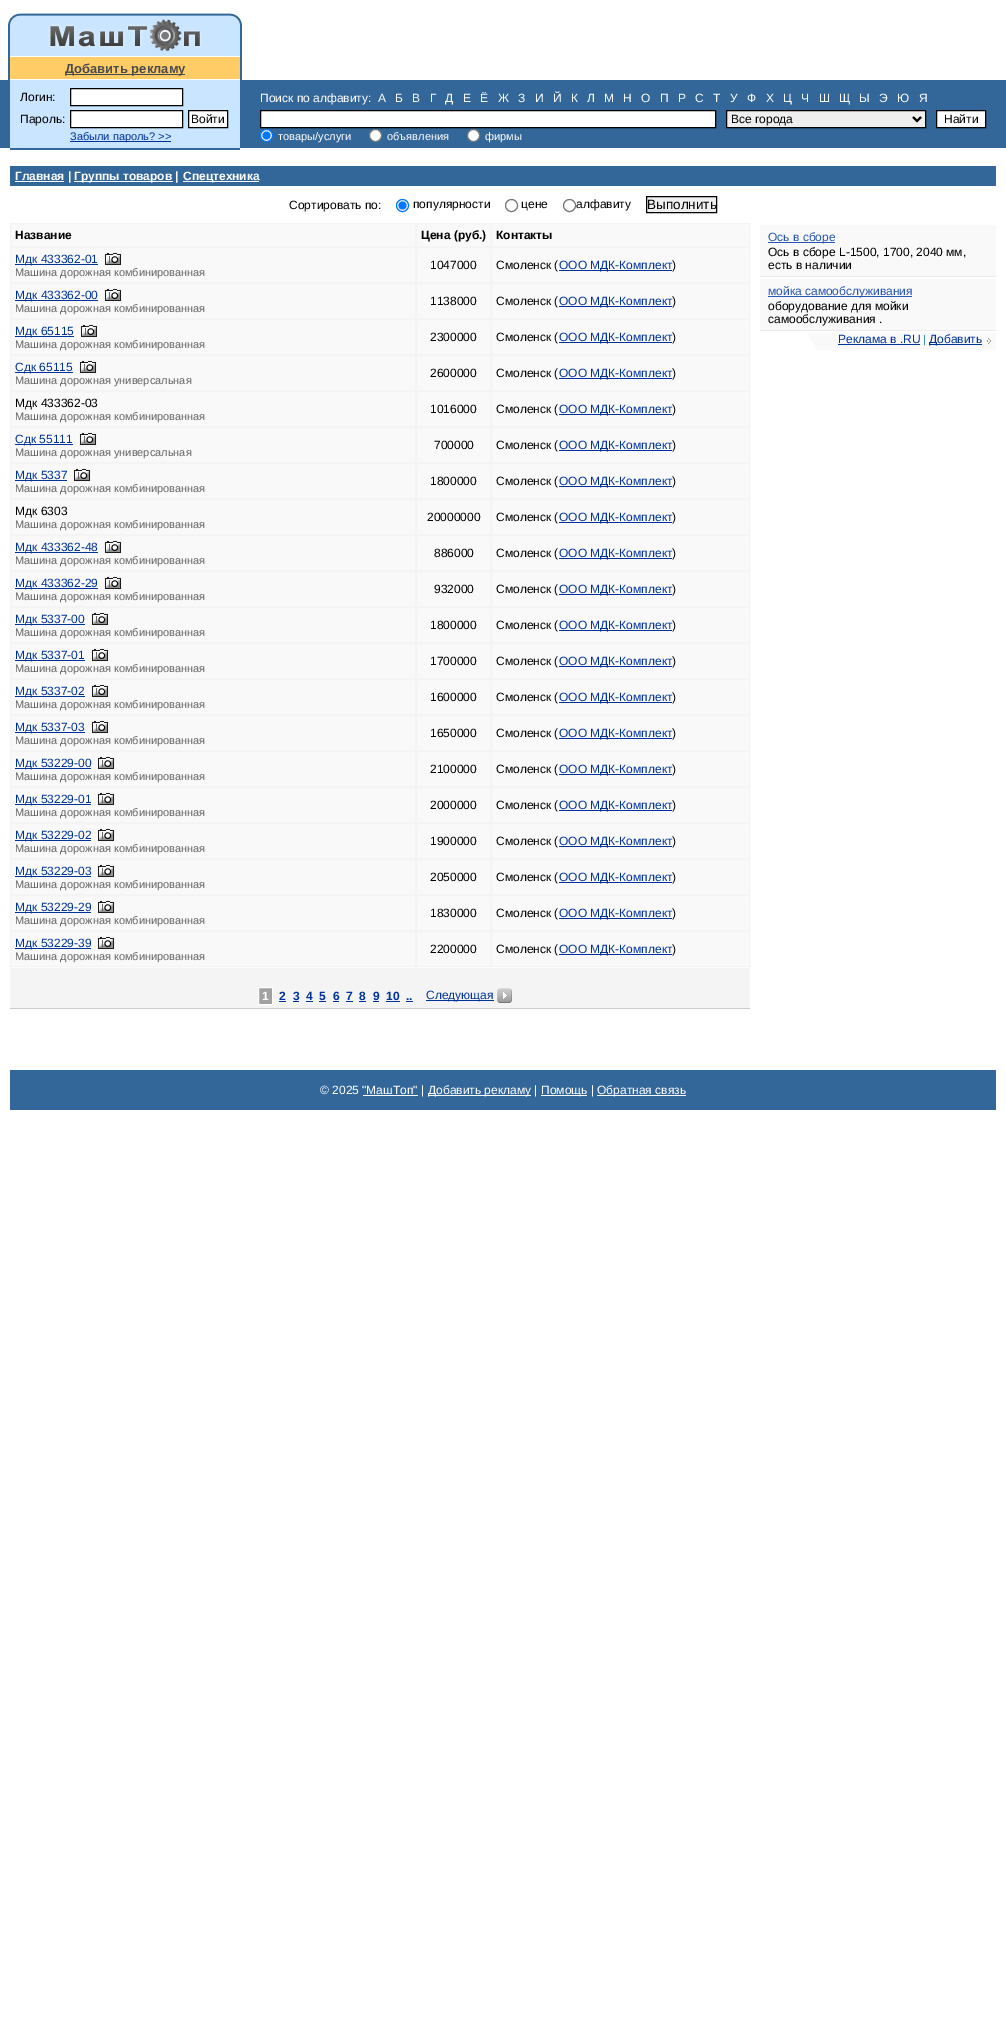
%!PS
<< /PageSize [1006 2018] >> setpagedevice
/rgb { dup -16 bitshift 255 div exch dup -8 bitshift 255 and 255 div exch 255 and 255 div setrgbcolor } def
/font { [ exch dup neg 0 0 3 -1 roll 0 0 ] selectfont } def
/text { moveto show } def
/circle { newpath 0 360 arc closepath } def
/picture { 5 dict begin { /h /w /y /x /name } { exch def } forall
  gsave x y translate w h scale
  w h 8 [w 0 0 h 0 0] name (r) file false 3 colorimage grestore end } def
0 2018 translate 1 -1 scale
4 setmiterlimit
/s1 { /LiberationSans-Bold 13 font 16#4A4B4C rgb } def
/s2 { /LiberationSans-Regular 12 font 16#000000 rgb } def
/s3 { /LiberationSans-Regular 11 font 16#003399 rgb } def
/s4 { /LiberationSans-Regular 12 font 16#FFFFFF rgb } def
/s5 { /LiberationSans-Regular 11 font 16#FFFFFF rgb } def
/s6 { /LiberationSans-Bold 12 font 16#FFFFFF rgb } def
/s7 { /LiberationSans-Regular 13.5 font 16#000000 rgb } def
/s8 { /LiberationSans-Bold 12 font 16#000000 rgb } def
/s9 { /LiberationSans-Regular 12 font 16#003399 rgb } def
/s10 { /LiberationSans-Regular 11 font 16#666666 rgb } def
/s11 { /LiberationSans-Regular 12 font 16#2957B3 rgb } def
/s12 { /LiberationSans-Regular 11 font 16#006699 rgb } def
/s13 { /LiberationSans-Bold 12 font 16#003399 rgb } def
16#FFFFFF rgb
0 0 1006 2018 rectfill
(pic1.raw) 8 13 234 43 picture
(pic2.raw) 48 19 154 32 picture
(pic3.raw) 8 56 234 24 picture
16#4A4B4C rgb
65 74 120 1 rectfill
s1
(Добавить рекламу) 65 73 text
16#336699 rgb
0 80 10 68 rectfill
16#CAE5FF rgb
10 80 230 68 rectfill
s2
(Логин:) 20 101 text
16#FFFFFF rgb
70.5 88.5 moveto 182.5 88.5 lineto 182.5 105.5 lineto 70.5 105.5 lineto closepath gsave fill grestore
16#000000 rgb
stroke
(Пароль:) 20 123 text
16#FFFFFF rgb
70.5 110.5 moveto 182.5 110.5 lineto 182.5 127.5 lineto 70.5 127.5 lineto closepath gsave fill grestore
16#000000 rgb
stroke
16#FFFFFF rgb
188.5 110.5 moveto 227.5 110.5 lineto 227.5 127.5 lineto 188.5 127.5 lineto closepath gsave fill grestore
16#000000 rgb
stroke
(Войти) 191 123 text
16#003399 rgb
70 141 101 1 rectfill
s3
(Забыли пароль? >>) 70 140 text
16#336699 rgb
240 80 766 68 rectfill
s4
(Поиск по алфавиту:) 260 102 text
(А) 378 102 text
(Б) 395 102 text
(В) 412 102 text
(Г) 430 102 text
(Д) 445 102 text
(Е) 463 102 text
(Ё) 480 102 text
(Ж) 498 102 text
(З) 518 102 text
(И) 535 102 text
(Й) 553 102 text
(К) 571 102 text
(Л) 587 102 text
(М) 604 102 text
(Н) 623 102 text
(О) 641 102 text
(П) 660 102 text
(Р) 678 102 text
(С) 695 102 text
(Т) 713 102 text
(У) 730 102 text
(Ф) 747 102 text
(Х) 766 102 text
(Ц) 783 102 text
(Ч) 801 102 text
(Ш) 819 102 text
(Щ) 839 102 text
(Ы) 859 102 text
(Э) 879 102 text
(Ю) 897 102 text
(Я) 919 102 text
260.5 110.5 moveto 715.5 110.5 lineto 715.5 127.5 lineto 260.5 127.5 lineto closepath gsave fill grestore
16#000000 rgb
stroke
16#EFEFEF rgb
726.5 110.5 moveto 925.5 110.5 lineto 925.5 127.5 lineto 726.5 127.5 lineto closepath gsave fill grestore
16#000000 rgb
stroke
2 setlinewidth
913 117 moveto 917 121 lineto 921 117 lineto stroke
(Все города) 731 123 text
16#FFFFFF rgb
936.5 110.5 moveto 985.5 110.5 lineto 985.5 127.5 lineto 936.5 127.5 lineto closepath gsave fill grestore
16#000000 rgb
1 setlinewidth
stroke
(Найти) 944 123 text
16#FFFFFF rgb
266.5 135.5 6 circle gsave fill grestore
16#0075FF rgb
stroke
266.5 135.5 4 circle fill
s5
(товары/услуги) 278 140 text
375.5 135.5 6 circle gsave fill grestore
16#767676 rgb
stroke
s5
(объявления) 387 140 text
473.5 135.5 6 circle gsave fill grestore
16#767676 rgb
stroke
s5
(фирмы) 485 140 text
16#336699 rgb
10 148 230 2 rectfill
10 166 986 20 rectfill
16#FFFFFF rgb
15 181 49 1 rectfill
s6
(Главная |) 15 180 text
74 181 99 1 rectfill
(Группы товаров |) 74 180 text
183 181 76 1 rectfill
(Спецтехника) 183 180 text
s2
(Сортировать по:) 289 209 text
16#0075FF rgb
402.5 205.5 6 circle stroke
402.5 205.5 4 circle fill
s2
(популярности) 413 208 text
16#767676 rgb
511.5 205.5 6 circle stroke
s2
(цене) 521 208 text
16#767676 rgb
569.5 205.5 6 circle stroke
s2
(алфавиту) 576 208 text
16#EFEFEF rgb
646.5 196.5 moveto 716.5 196.5 lineto 716.5 212.5 lineto 646.5 212.5 lineto closepath gsave fill grestore
16#000000 rgb
stroke
s7
(Выполнить) 647 209 text
16#F9F9F9 rgb
11 224 738 742 rectfill
16#F4F4F4 rgb
10.5 223.5 405 23 rectstroke
s8
(Название) 15 239 text
16#F4F4F4 rgb
416.5 223.5 74 23 rectstroke
s8
(Цена \(руб.\)) 421 239 text
16#F4F4F4 rgb
491.5 223.5 258 23 rectstroke
s8
(Контакты) 496 239 text
16#F4F4F4 rgb
10.5 247.5 405 35 rectstroke
16#003399 rgb
15 264 83 1 rectfill
s9
(Мдк 433362-01) 15 263 text
(pic4.raw) 104 252 18 14 picture
s10
(Машина дорожная комбинированная) 15 276 text
16#F4F4F4 rgb
416.5 247.5 74 35 rectstroke
s2
(1047000) 430 269 text
16#F4F4F4 rgb
491.5 247.5 258 35 rectstroke
s2
(Смоленск \() 496 269 text
16#003399 rgb
559 270 113 1 rectfill
(ООО МДК-Комплект) 559 269 text
s2
(\)) 672 269 text
16#F4F4F4 rgb
10.5 283.5 405 35 rectstroke
16#003399 rgb
15 300 83 1 rectfill
(Мдк 433362-00) 15 299 text
(pic4.raw) 104 288 18 14 picture
s10
(Машина дорожная комбинированная) 15 312 text
16#F4F4F4 rgb
416.5 283.5 74 35 rectstroke
s2
(1138000) 430 305 text
16#F4F4F4 rgb
491.5 283.5 258 35 rectstroke
s2
(Смоленск \() 496 305 text
16#003399 rgb
559 306 113 1 rectfill
(ООО МДК-Комплект) 559 305 text
s2
(\)) 672 305 text
16#F4F4F4 rgb
10.5 319.5 405 35 rectstroke
16#003399 rgb
15 336 59 1 rectfill
(Мдк 65115) 15 335 text
(pic4.raw) 80 324 18 14 picture
s10
(Машина дорожная комбинированная) 15 348 text
16#F4F4F4 rgb
416.5 319.5 74 35 rectstroke
s2
(2300000) 430 341 text
16#F4F4F4 rgb
491.5 319.5 258 35 rectstroke
s2
(Смоленск \() 496 341 text
16#003399 rgb
559 342 113 1 rectfill
(ООО МДК-Комплект) 559 341 text
s2
(\)) 672 341 text
16#F4F4F4 rgb
10.5 355.5 405 35 rectstroke
16#003399 rgb
15 372 58 1 rectfill
(Сдк 65115) 15 371 text
(pic4.raw) 79 360 18 14 picture
s10
(Машина дорожная универсальная) 15 384 text
16#F4F4F4 rgb
416.5 355.5 74 35 rectstroke
s2
(2600000) 430 377 text
16#F4F4F4 rgb
491.5 355.5 258 35 rectstroke
s2
(Смоленск \() 496 377 text
16#003399 rgb
559 378 113 1 rectfill
(ООО МДК-Комплект) 559 377 text
s2
(\)) 672 377 text
16#F4F4F4 rgb
10.5 391.5 405 35 rectstroke
s2
(Мдк 433362-03) 15 407 text
s10
(Машина дорожная комбинированная) 15 420 text
16#F4F4F4 rgb
416.5 391.5 74 35 rectstroke
s2
(1016000) 430 413 text
16#F4F4F4 rgb
491.5 391.5 258 35 rectstroke
s2
(Смоленск \() 496 413 text
16#003399 rgb
559 414 113 1 rectfill
(ООО МДК-Комплект) 559 413 text
s2
(\)) 672 413 text
16#F4F4F4 rgb
10.5 427.5 405 35 rectstroke
16#003399 rgb
15 444 58 1 rectfill
(Сдк 55111) 15 443 text
(pic4.raw) 79 432 18 14 picture
s10
(Машина дорожная универсальная) 15 456 text
16#F4F4F4 rgb
416.5 427.5 74 35 rectstroke
s2
(700000) 434 449 text
16#F4F4F4 rgb
491.5 427.5 258 35 rectstroke
s2
(Смоленск \() 496 449 text
16#003399 rgb
559 450 113 1 rectfill
(ООО МДК-Комплект) 559 449 text
s2
(\)) 672 449 text
16#F4F4F4 rgb
10.5 463.5 405 35 rectstroke
16#003399 rgb
15 480 52 1 rectfill
(Мдк 5337) 15 479 text
(pic4.raw) 73 468 18 14 picture
s10
(Машина дорожная комбинированная) 15 492 text
16#F4F4F4 rgb
416.5 463.5 74 35 rectstroke
s2
(1800000) 430 485 text
16#F4F4F4 rgb
491.5 463.5 258 35 rectstroke
s2
(Смоленск \() 496 485 text
16#003399 rgb
559 486 113 1 rectfill
(ООО МДК-Комплект) 559 485 text
s2
(\)) 672 485 text
16#F4F4F4 rgb
10.5 499.5 405 35 rectstroke
s2
(Мдк 6303) 15 515 text
s10
(Машина дорожная комбинированная) 15 528 text
16#F4F4F4 rgb
416.5 499.5 74 35 rectstroke
s2
(20000000) 427 521 text
16#F4F4F4 rgb
491.5 499.5 258 35 rectstroke
s2
(Смоленск \() 496 521 text
16#003399 rgb
559 522 113 1 rectfill
(ООО МДК-Комплект) 559 521 text
s2
(\)) 672 521 text
16#F4F4F4 rgb
10.5 535.5 405 35 rectstroke
16#003399 rgb
15 552 83 1 rectfill
(Мдк 433362-48) 15 551 text
(pic4.raw) 104 540 18 14 picture
s10
(Машина дорожная комбинированная) 15 564 text
16#F4F4F4 rgb
416.5 535.5 74 35 rectstroke
s2
(886000) 434 557 text
16#F4F4F4 rgb
491.5 535.5 258 35 rectstroke
s2
(Смоленск \() 496 557 text
16#003399 rgb
559 558 113 1 rectfill
(ООО МДК-Комплект) 559 557 text
s2
(\)) 672 557 text
16#F4F4F4 rgb
10.5 571.5 405 35 rectstroke
16#003399 rgb
15 588 83 1 rectfill
(Мдк 433362-29) 15 587 text
(pic4.raw) 104 576 18 14 picture
s10
(Машина дорожная комбинированная) 15 600 text
16#F4F4F4 rgb
416.5 571.5 74 35 rectstroke
s2
(932000) 434 593 text
16#F4F4F4 rgb
491.5 571.5 258 35 rectstroke
s2
(Смоленск \() 496 593 text
16#003399 rgb
559 594 113 1 rectfill
(ООО МДК-Комплект) 559 593 text
s2
(\)) 672 593 text
16#F4F4F4 rgb
10.5 607.5 405 35 rectstroke
16#003399 rgb
15 624 70 1 rectfill
(Мдк 5337-00) 15 623 text
(pic4.raw) 91 612 18 14 picture
s10
(Машина дорожная комбинированная) 15 636 text
16#F4F4F4 rgb
416.5 607.5 74 35 rectstroke
s2
(1800000) 430 629 text
16#F4F4F4 rgb
491.5 607.5 258 35 rectstroke
s2
(Смоленск \() 496 629 text
16#003399 rgb
559 630 113 1 rectfill
(ООО МДК-Комплект) 559 629 text
s2
(\)) 672 629 text
16#F4F4F4 rgb
10.5 643.5 405 35 rectstroke
16#003399 rgb
15 660 70 1 rectfill
(Мдк 5337-01) 15 659 text
(pic4.raw) 91 648 18 14 picture
s10
(Машина дорожная комбинированная) 15 672 text
16#F4F4F4 rgb
416.5 643.5 74 35 rectstroke
s2
(1700000) 430 665 text
16#F4F4F4 rgb
491.5 643.5 258 35 rectstroke
s2
(Смоленск \() 496 665 text
16#003399 rgb
559 666 113 1 rectfill
(ООО МДК-Комплект) 559 665 text
s2
(\)) 672 665 text
16#F4F4F4 rgb
10.5 679.5 405 35 rectstroke
16#003399 rgb
15 696 70 1 rectfill
(Мдк 5337-02) 15 695 text
(pic4.raw) 91 684 18 14 picture
s10
(Машина дорожная комбинированная) 15 708 text
16#F4F4F4 rgb
416.5 679.5 74 35 rectstroke
s2
(1600000) 430 701 text
16#F4F4F4 rgb
491.5 679.5 258 35 rectstroke
s2
(Смоленск \() 496 701 text
16#003399 rgb
559 702 113 1 rectfill
(ООО МДК-Комплект) 559 701 text
s2
(\)) 672 701 text
16#F4F4F4 rgb
10.5 715.5 405 35 rectstroke
16#003399 rgb
15 732 70 1 rectfill
(Мдк 5337-03) 15 731 text
(pic4.raw) 91 720 18 14 picture
s10
(Машина дорожная комбинированная) 15 744 text
16#F4F4F4 rgb
416.5 715.5 74 35 rectstroke
s2
(1650000) 430 737 text
16#F4F4F4 rgb
491.5 715.5 258 35 rectstroke
s2
(Смоленск \() 496 737 text
16#003399 rgb
559 738 113 1 rectfill
(ООО МДК-Комплект) 559 737 text
s2
(\)) 672 737 text
16#F4F4F4 rgb
10.5 751.5 405 35 rectstroke
16#003399 rgb
15 768 76 1 rectfill
(Мдк 53229-00) 15 767 text
(pic4.raw) 97 756 18 14 picture
s10
(Машина дорожная комбинированная) 15 780 text
16#F4F4F4 rgb
416.5 751.5 74 35 rectstroke
s2
(2100000) 430 773 text
16#F4F4F4 rgb
491.5 751.5 258 35 rectstroke
s2
(Смоленск \() 496 773 text
16#003399 rgb
559 774 113 1 rectfill
(ООО МДК-Комплект) 559 773 text
s2
(\)) 672 773 text
16#F4F4F4 rgb
10.5 787.5 405 35 rectstroke
16#003399 rgb
15 804 76 1 rectfill
(Мдк 53229-01) 15 803 text
(pic4.raw) 97 792 18 14 picture
s10
(Машина дорожная комбинированная) 15 816 text
16#F4F4F4 rgb
416.5 787.5 74 35 rectstroke
s2
(2000000) 430 809 text
16#F4F4F4 rgb
491.5 787.5 258 35 rectstroke
s2
(Смоленск \() 496 809 text
16#003399 rgb
559 810 113 1 rectfill
(ООО МДК-Комплект) 559 809 text
s2
(\)) 672 809 text
16#F4F4F4 rgb
10.5 823.5 405 35 rectstroke
16#003399 rgb
15 840 76 1 rectfill
(Мдк 53229-02) 15 839 text
(pic4.raw) 97 828 18 14 picture
s10
(Машина дорожная комбинированная) 15 852 text
16#F4F4F4 rgb
416.5 823.5 74 35 rectstroke
s2
(1900000) 430 845 text
16#F4F4F4 rgb
491.5 823.5 258 35 rectstroke
s2
(Смоленск \() 496 845 text
16#003399 rgb
559 846 113 1 rectfill
(ООО МДК-Комплект) 559 845 text
s2
(\)) 672 845 text
16#F4F4F4 rgb
10.5 859.5 405 35 rectstroke
16#003399 rgb
15 876 76 1 rectfill
(Мдк 53229-03) 15 875 text
(pic4.raw) 97 864 18 14 picture
s10
(Машина дорожная комбинированная) 15 888 text
16#F4F4F4 rgb
416.5 859.5 74 35 rectstroke
s2
(2050000) 430 881 text
16#F4F4F4 rgb
491.5 859.5 258 35 rectstroke
s2
(Смоленск \() 496 881 text
16#003399 rgb
559 882 113 1 rectfill
(ООО МДК-Комплект) 559 881 text
s2
(\)) 672 881 text
16#F4F4F4 rgb
10.5 895.5 405 35 rectstroke
16#003399 rgb
15 912 76 1 rectfill
(Мдк 53229-29) 15 911 text
(pic4.raw) 97 900 18 14 picture
s10
(Машина дорожная комбинированная) 15 924 text
16#F4F4F4 rgb
416.5 895.5 74 35 rectstroke
s2
(1830000) 430 917 text
16#F4F4F4 rgb
491.5 895.5 258 35 rectstroke
s2
(Смоленск \() 496 917 text
16#003399 rgb
559 918 113 1 rectfill
(ООО МДК-Комплект) 559 917 text
s2
(\)) 672 917 text
16#F4F4F4 rgb
10.5 931.5 405 35 rectstroke
16#003399 rgb
15 948 76 1 rectfill
(Мдк 53229-39) 15 947 text
(pic4.raw) 97 936 18 14 picture
s10
(Машина дорожная комбинированная) 15 960 text
16#F4F4F4 rgb
416.5 931.5 74 35 rectstroke
s2
(2200000) 430 953 text
16#F4F4F4 rgb
491.5 931.5 258 35 rectstroke
s2
(Смоленск \() 496 953 text
16#003399 rgb
559 954 113 1 rectfill
(ООО МДК-Комплект) 559 953 text
s2
(\)) 672 953 text
16#F9F9F9 rgb
760 225 236 51 rectfill
16#EBEBEB rgb
760 276 236 1 rectfill
16#2957B3 rgb
768 242 67 1 rectfill
(Ось в сборе) 768 241 text
s2
(Ось в сборе L-1500, 1700, 2040 мм,) 768 256 text
(есть в наличии) 768 269 text
16#F9F9F9 rgb
760 279 236 51 rectfill
16#EBEBEB rgb
760 330 236 1 rectfill
16#2957B3 rgb
768 296 144 1 rectfill
(мойка самообслуживания) 768 295 text
s2
(оборудование для мойки) 768 310 text
(самообслуживания .) 768 323 text
(pic5.raw) 807 333 189 17 picture
s9
(Реклама в .RU) 838 343 text
838 344 82 1 rectfill
s12
(|) 923 343 text
16#003399 rgb
929 344 53 1 rectfill
s9
(Добавить) 929 343 text
16#F4F4F4 rgb
10 968 740 40 rectfill
16#CCCCCC rgb
10 1008 740 1 rectfill
16#A1A1A1 rgb
258.5 987.5 moveto 272.5 987.5 lineto 272.5 1004.5 lineto 258.5 1004.5 lineto closepath gsave fill grestore
16#FFFFFF rgb
stroke
s6
(1) 262 1000 text
s13
(2) 279 1000 text
279 1001 7 1 rectfill
(3) 293 1000 text
293 1001 6 1 rectfill
(4) 306 1000 text
306 1001 7 1 rectfill
(5) 319 1000 text
319 1001 7 1 rectfill
(6) 333 1000 text
333 1001 6 1 rectfill
(7) 346 1000 text
346 1001 7 1 rectfill
(8) 359 1000 text
359 1001 7 1 rectfill
(9) 373 1000 text
373 1001 6 1 rectfill
(10) 386 1000 text
386 1001 14 1 rectfill
(..) 406 1000 text
406 1001 7 1 rectfill
426 1000 68 1 rectfill
s9
(Следующая) 426 999 text
(pic6.raw) 497 988 15 15 picture
16#336699 rgb
10 1070 986 40 rectfill
s4
(© 2025 "МашТоп" |) 320 1094 text
428 1095 103 1 rectfill
(Добавить рекламу |) 428 1094 text
541 1095 46 1 rectfill
(Помощь |) 541 1094 text
597 1095 89 1 rectfill
(Обратная связь) 597 1094 text
363 1095 55 1 rectfill
showpage
